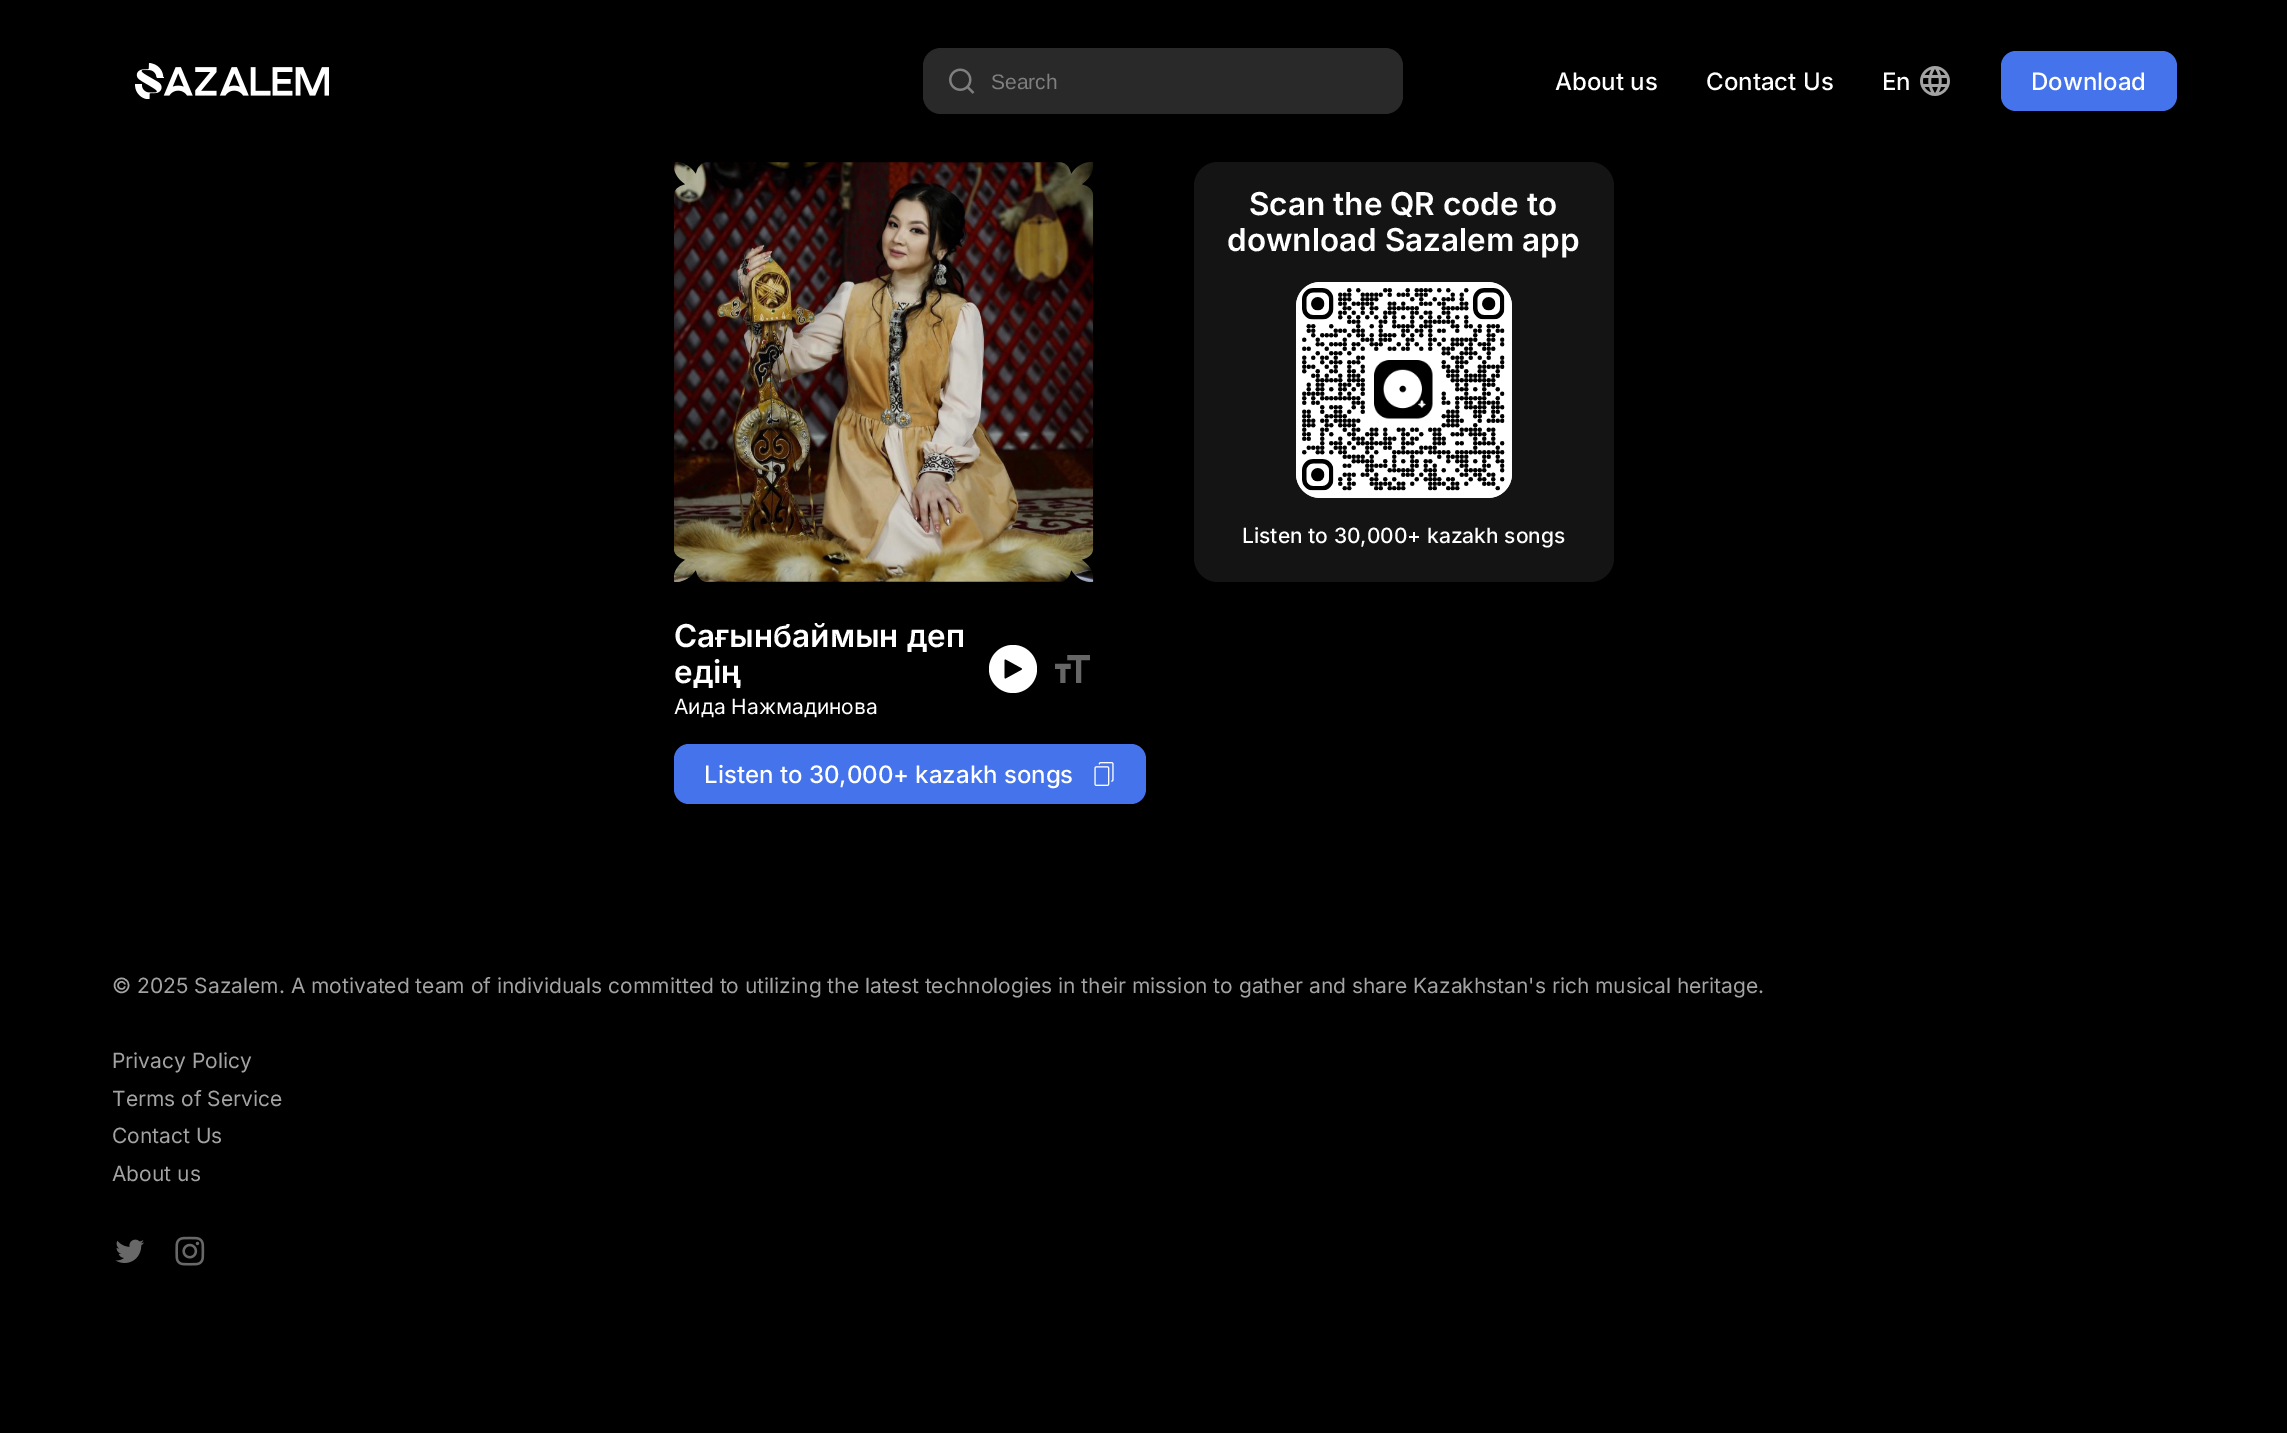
%!PS
<< /PageSize [2287 1433] >> setpagedevice
/rgb { dup -16 bitshift 255 div exch dup -8 bitshift 255 and 255 div exch 255 and 255 div setrgbcolor } def
/font { [ exch dup neg 0 0 3 -1 roll 0 0 ] selectfont } def
/text { moveto show } def
/circle { newpath 0 360 arc closepath } def
/roundrect { 5 dict begin { /r /h /w /y /x } { exch def } forall
  x r add y moveto x w add y 2 copy h add r arct x w add y h add x 1 index r arct
  x y h add x y r arct x y 2 copy exch w add exch r arct closepath end } def
/picture { 5 dict begin { /h /w /y /x /name } { exch def } forall
  gsave x y translate w h scale
  w h 8 [w 0 0 h 0 0] name (r) file false 3 colorimage grestore end } def
0 1433 translate 1 -1 scale
4 setmiterlimit
/s1 { /LiberationSans-Regular 21 font 16#7F7F7F rgb } def
/s2 { /Inter-Medium 24 font 16#FFFFFF rgb } def
/s3 { /Inter-SemiBold 31.5 font 16#FFFFFF rgb } def
/s4 { /Inter-Medium 21 font 16#FFFFFF rgb } def
/s5 { /Inter-Regular 21 font 16#FFFFFF rgb } def
/s6 { /Inter-Regular 21 font 16#A3A3A3 rgb } def
16#000000 rgb
0 0 2287 1433 rectfill
(pic1.raw) 135 63 194 36 picture
16#292929 rgb
923 48 480 66 18 roundrect fill
(pic2.raw) 949 68 26 26 picture
s1
(Search) 991 89 text
s2
(About us) 1555 90 text
(Contact Us) 1706 90 text
(En) 1882 90 text
(pic3.raw) 1920 66 30 30 picture
16#4473EB rgb
2001 51 176 60 15 roundrect fill
s2
(Download) 2031 90 text
16#141414 rgb
1194 162 420 420 24 roundrect fill
s3
(Scan the QR code to) 1249 215 text
(download Sazalem app) 1227 251 text
(pic4.raw) 1296 282 216 216 picture
s4
(Listen to 30,000+ kazakh songs) 1242 543 text
(pic5.raw) 674 162 420 420 picture
s3
(Сағынбаймын деп) 674 647 text
(едiң) 674 683 text
s5
(Аида Нажмадинова) 674 714 text
1013 669 24 circle fill
(pic6.raw) 1004 659 18 20 picture
(pic7.raw) 1055 655 35 28 picture
16#4473EB rgb
674 744 472 60 15 roundrect fill
s2
(Listen to 30,000+ kazakh songs) 704 783 text
(pic8.raw) 1094 762 20 24 picture
s6
(© 2025 Sazalem. A motivated team of individuals committed to utilizing the latest technologies in their mission to gather and share Kazakhstan's rich musical heritage.) 112 993 text
(Privacy Policy) 112 1068 text
(Terms of Service) 112 1106 text
(Contact Us) 112 1143 text
(About us) 112 1181 text
(pic9.raw) 115 1239 29 24 picture
(pic10.raw) 175 1236 30 30 picture
showpage
